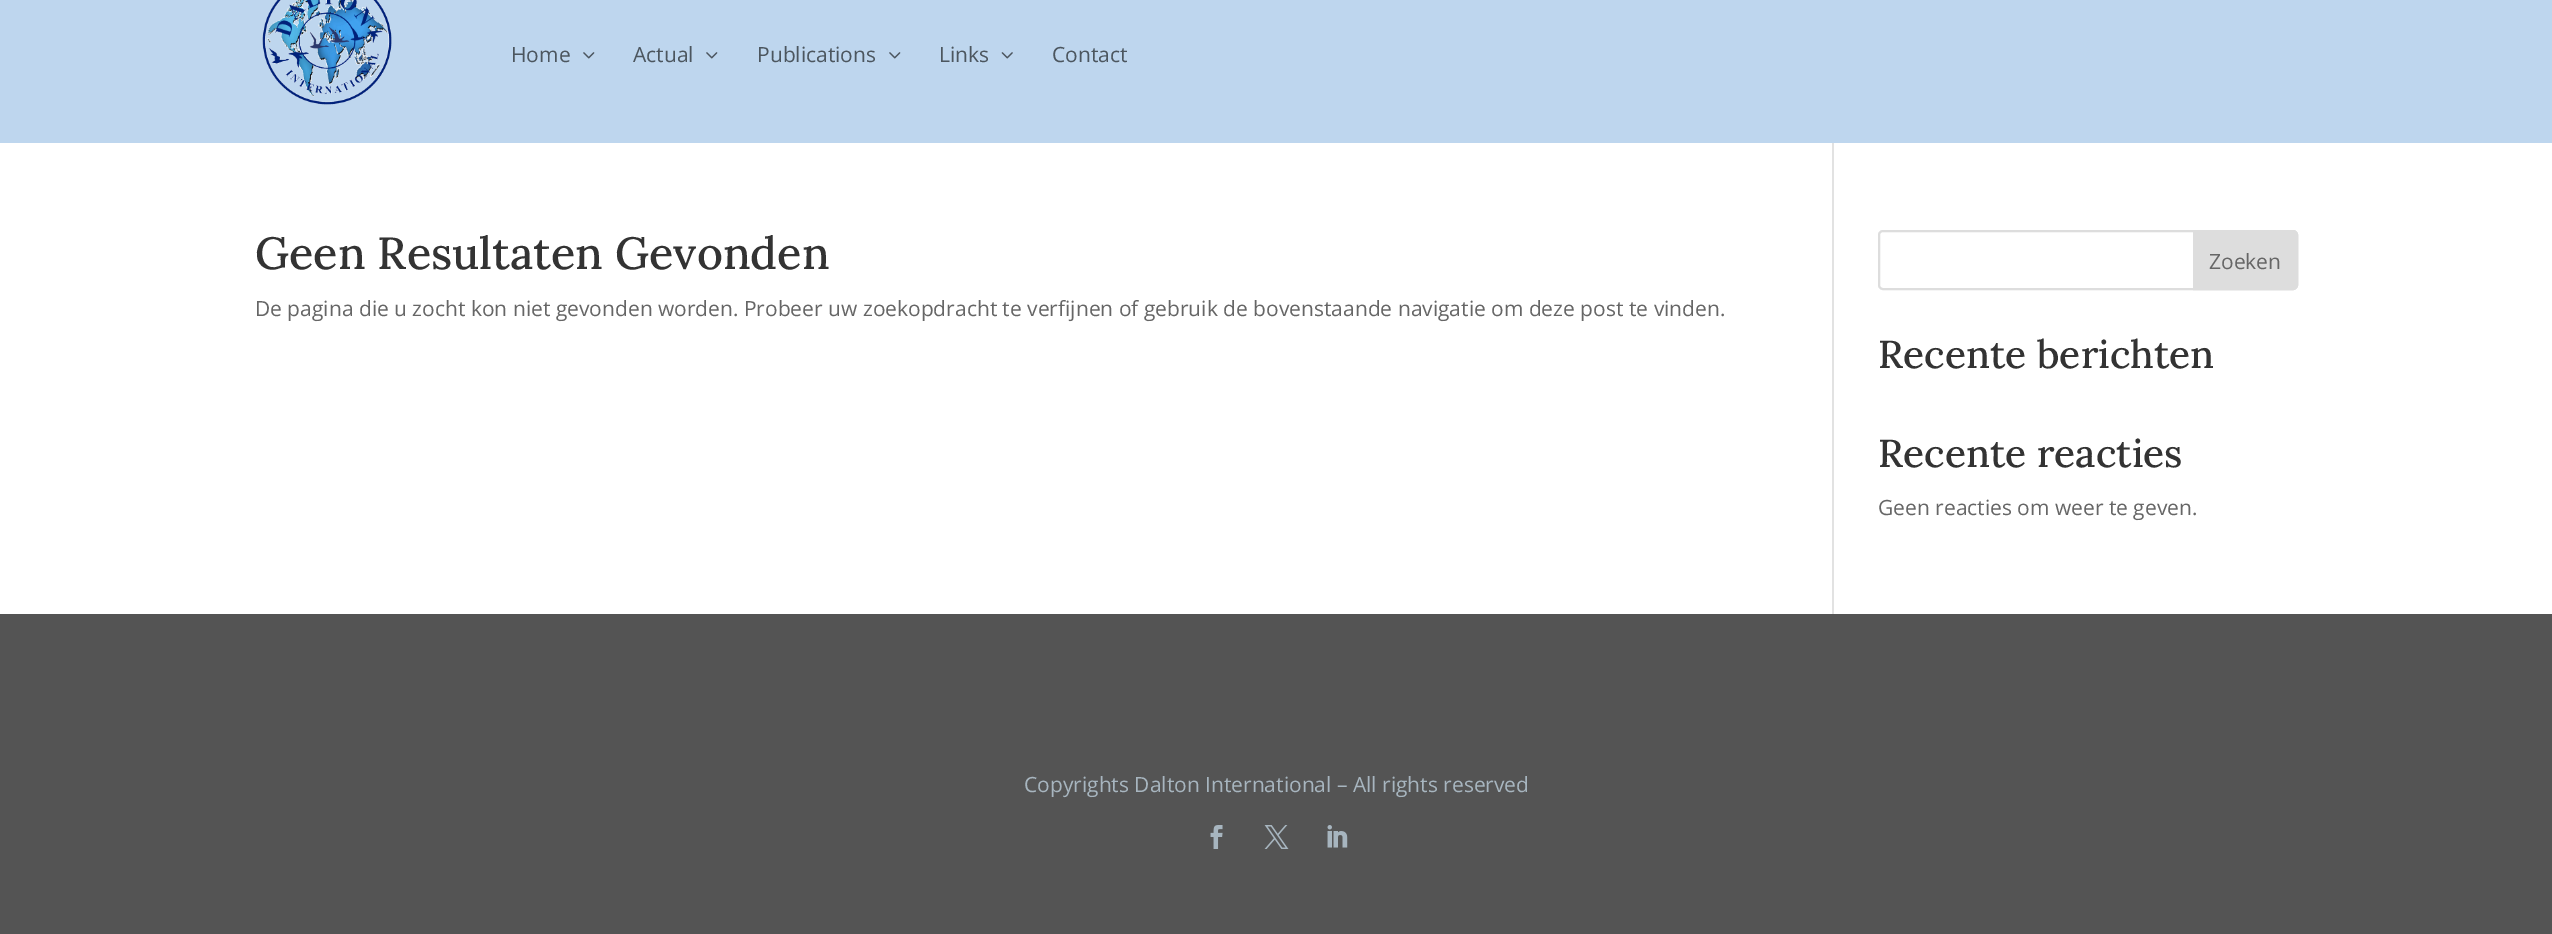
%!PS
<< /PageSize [2552 934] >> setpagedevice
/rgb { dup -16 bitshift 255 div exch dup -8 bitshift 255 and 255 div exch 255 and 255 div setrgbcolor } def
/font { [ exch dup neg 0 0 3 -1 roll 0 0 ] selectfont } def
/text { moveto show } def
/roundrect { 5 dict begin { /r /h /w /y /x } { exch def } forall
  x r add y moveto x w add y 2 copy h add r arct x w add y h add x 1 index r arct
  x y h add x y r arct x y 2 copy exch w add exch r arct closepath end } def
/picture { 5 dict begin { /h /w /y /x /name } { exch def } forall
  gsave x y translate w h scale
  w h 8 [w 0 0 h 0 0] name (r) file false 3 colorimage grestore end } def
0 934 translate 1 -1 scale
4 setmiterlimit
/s1 { /OpenSans-Regular 21 font 16#4C565F rgb } def
/s2 { /Lora-Medium 45 font 16#333333 rgb } def
/s3 { /OpenSans-Regular 21 font 16#666666 rgb } def
/s4 { /Lora-Medium 39 font 16#333333 rgb } def
/s5 { /OpenSans-Regular 21 font 16#A7B5BF rgb } def
16#FFFFFF rgb
0 0 2552 934 rectfill
16#BED6EE rgb
0 0 2552 143 rectfill
(pic1.raw) 262 0 130 105 picture
s1
(Home) 511 62 text
(pic2.raw) 583 52 12 7 picture
(Actual) 633 62 text
(pic2.raw) 706 52 12 7 picture
(Publications) 757 62 text
(pic2.raw) 889 52 12 7 picture
(Links) 939 62 text
(pic3.raw) 1001 52 12 7 picture
(Contact) 1052 62 text
16#E2E2E2 rgb
1832 143 2 471 rectfill
s2
(Geen Resultaten Gevonden) 255 269 text
s3
(De pagina die u zocht kon niet gevonden worden. Probeer uw zoekopdracht te verfijnen of gebruik de bovenstaande navigatie om deze post te vinden.) 255 316 text
16#DDDDDD rgb
2 setlinewidth
1879 231 418 58 4 roundrect stroke
2194 231 moveto 2293 231 lineto 2295 231 2297 233 2297 235 curveto 2297 285 lineto 2297 287 2295 289 2293 289 curveto 2194 289 lineto closepath gsave fill grestore
stroke
s3
(Zoeken) 2209 269 text
s4
(Recente berichten) 1878 368 text
(Recente reacties) 1878 467 text
s3
(Geen reacties om weer te geven.) 1878 515 text
16#545454 rgb
0 614 2552 320 rectfill
s5
(Copyrights Dalton International – All rights reserved) 1024 792 text
(pic4.raw) 1210 825 13 24 picture
(pic5.raw) 1264 825 25 24 picture
(pic6.raw) 1327 825 21 23 picture
showpage
